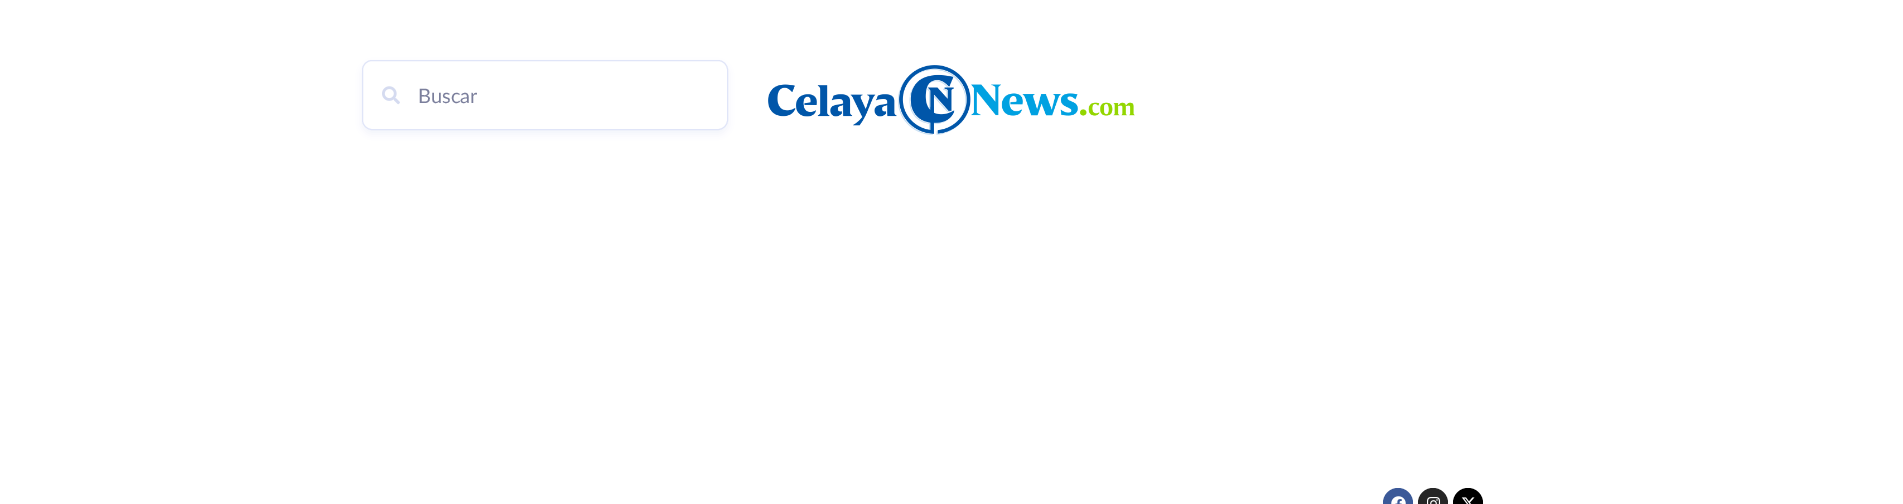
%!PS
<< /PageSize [1903 504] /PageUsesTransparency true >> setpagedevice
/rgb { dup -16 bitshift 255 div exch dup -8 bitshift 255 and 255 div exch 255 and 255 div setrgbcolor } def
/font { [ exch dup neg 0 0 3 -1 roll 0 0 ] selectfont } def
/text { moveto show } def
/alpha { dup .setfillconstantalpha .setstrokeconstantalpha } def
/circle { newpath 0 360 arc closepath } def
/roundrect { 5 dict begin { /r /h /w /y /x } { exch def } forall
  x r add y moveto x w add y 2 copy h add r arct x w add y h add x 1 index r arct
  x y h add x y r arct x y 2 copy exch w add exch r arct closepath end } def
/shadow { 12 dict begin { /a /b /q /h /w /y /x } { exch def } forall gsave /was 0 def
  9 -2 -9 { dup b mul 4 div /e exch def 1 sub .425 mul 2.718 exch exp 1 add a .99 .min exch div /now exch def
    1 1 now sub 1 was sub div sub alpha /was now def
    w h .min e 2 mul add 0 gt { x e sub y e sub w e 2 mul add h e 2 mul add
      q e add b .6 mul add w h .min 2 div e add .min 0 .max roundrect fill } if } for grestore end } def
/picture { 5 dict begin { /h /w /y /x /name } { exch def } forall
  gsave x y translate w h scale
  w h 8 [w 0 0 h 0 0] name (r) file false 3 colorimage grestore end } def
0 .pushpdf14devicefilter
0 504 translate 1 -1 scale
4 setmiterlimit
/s1 { /Lato-Regular 20 font 16#7B7F9C rgb } def
16#FFFFFF rgb
0 0 1903 504 rectfill
16#A5AED5 rgb
362 64 366 70 10 4 0.15 shadow
16#FFFFFF rgb
362.5 60.5 365 69 9.5 roundrect gsave fill grestore
16#E0E5F8 rgb
stroke
(pic1.raw) 382 86 18 19 picture
s1
(Buscar) 418 103 text
(pic2.raw) 768 65 367 70 picture
16#3B5998 rgb
1398 503 15 circle fill
(pic3.raw) 1391 496 15 8 picture
16#262626 rgb
1433 503 15 circle fill
(pic4.raw) 1427 497 14 7 picture
16#000000 rgb
1468 503 15 circle fill
(pic5.raw) 1461 497 14 7 picture
.poppdf14devicefilter showpage
